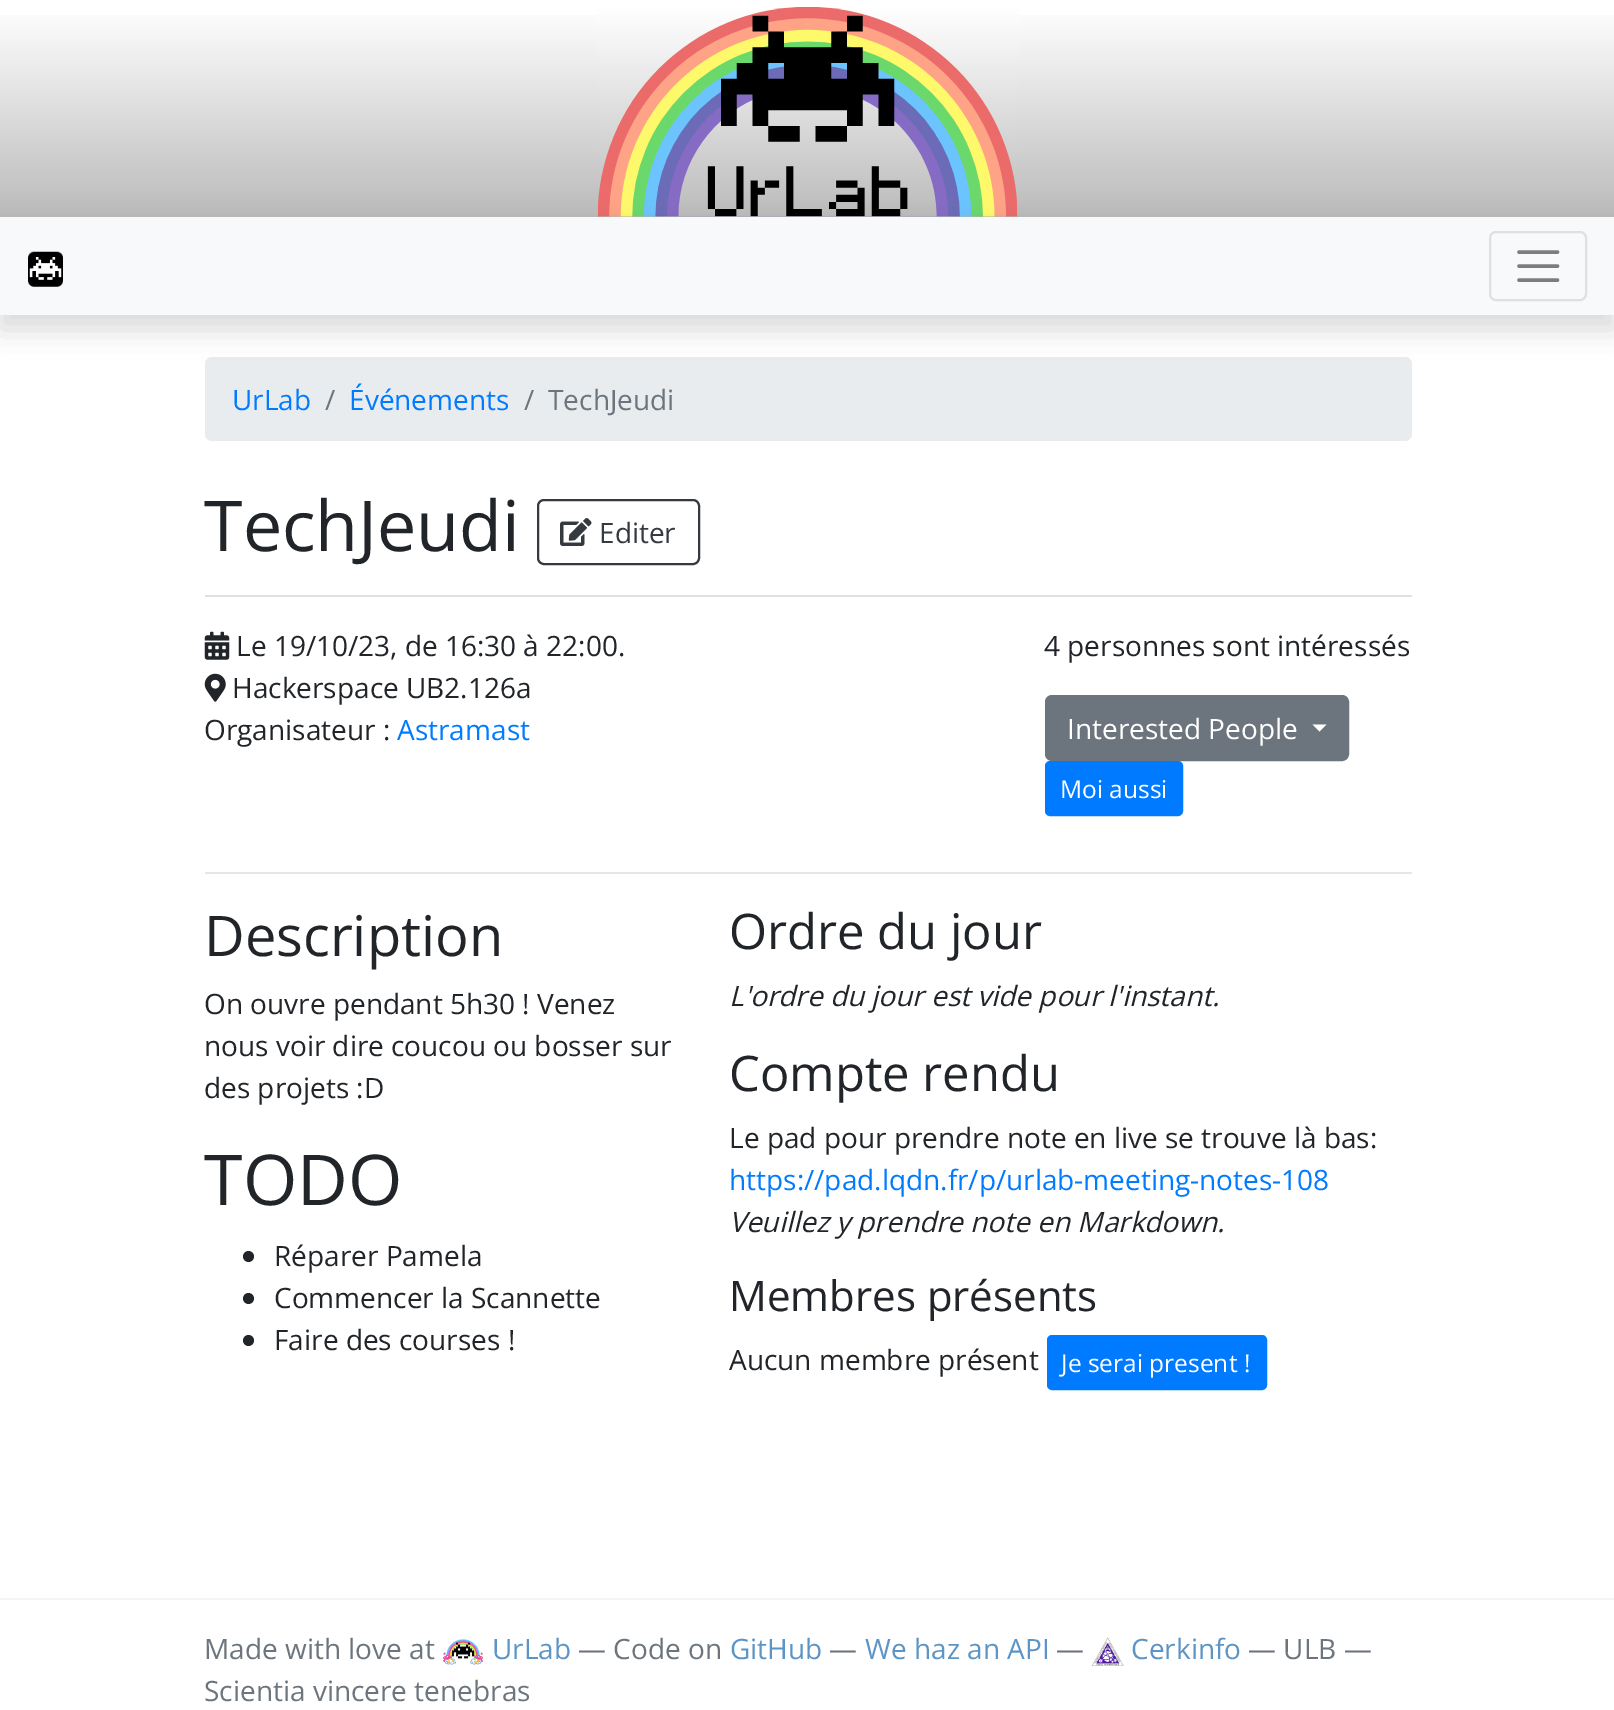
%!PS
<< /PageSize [1614 1710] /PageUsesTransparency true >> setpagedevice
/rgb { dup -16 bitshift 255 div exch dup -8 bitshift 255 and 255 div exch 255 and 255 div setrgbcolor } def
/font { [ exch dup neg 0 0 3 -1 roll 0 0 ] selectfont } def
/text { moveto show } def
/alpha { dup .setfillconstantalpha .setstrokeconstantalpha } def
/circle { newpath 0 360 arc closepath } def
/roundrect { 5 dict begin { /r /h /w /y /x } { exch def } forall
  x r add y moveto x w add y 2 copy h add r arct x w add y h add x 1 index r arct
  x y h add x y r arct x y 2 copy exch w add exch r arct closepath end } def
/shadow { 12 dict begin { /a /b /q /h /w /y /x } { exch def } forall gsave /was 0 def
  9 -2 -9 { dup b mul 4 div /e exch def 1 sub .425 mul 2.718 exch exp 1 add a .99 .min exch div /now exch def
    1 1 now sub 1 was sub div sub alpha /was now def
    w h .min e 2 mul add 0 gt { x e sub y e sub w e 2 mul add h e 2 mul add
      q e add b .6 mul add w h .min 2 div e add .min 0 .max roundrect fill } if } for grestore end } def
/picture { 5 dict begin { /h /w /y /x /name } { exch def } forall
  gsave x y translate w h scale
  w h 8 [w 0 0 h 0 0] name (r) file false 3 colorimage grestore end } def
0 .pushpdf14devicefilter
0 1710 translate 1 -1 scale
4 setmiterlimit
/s1 { /OpenSans-Regular 28 font 16#007BFF rgb } def
/s2 { /OpenSans-Regular 28 font 16#6C757D rgb } def
/s3 { /OpenSans-Regular 70 font 16#212529 rgb } def
/s4 { /OpenSans-Regular 28 font 16#343A40 rgb } def
/s5 { /OpenSans-Regular 28 font 16#212529 rgb } def
/s6 { /OpenSans-Regular 28 font 16#FFFFFF rgb } def
/s7 { /OpenSans-Regular 24.5 font 16#FFFFFF rgb } def
/s8 { /OpenSans-Regular 56 font 16#212529 rgb } def
/s9 { /OpenSans-Regular 49 font 16#212529 rgb } def
/s10 { /OpenSans-Italic 28 font 16#212529 rgb } def
/s11 { /OpenSans-Regular 42 font 16#212529 rgb } def
/s12 { /OpenSans-Regular 28 font 16#5B94C5 rgb } def
16#FFFFFF rgb
0 0 1614 1710 rectfill
gsave 0 15 moveto 1614 15 lineto 1614 217 lineto 0 217 lineto closepath clip newpath
<< /ShadingType 2 /ColorSpace /DeviceRGB /Coords [808 7 808 217] /Extend [true true] /Function << /FunctionType 2 /Domain [0 1] /C0 [1 1 1] /C1 [0.733 0.733 0.733] /N 1 >> >> shfill grestore
(pic1.raw) 598 7 420 210 picture
16#E9ECEF rgb
205 357 1207 84 7 roundrect fill
16#000000 rgb
0 231 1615 98 0 14 0.15 shadow
16#F8F9FA rgb
0 217 1614 98 rectfill
(pic2.raw) 28 251 35 36 picture
16#DFE0E1 rgb
2 setlinewidth
1490 232 96 68 6 roundrect stroke
16#7C7D7D rgb
3.5 setlinewidth
1 setlinecap
1519 252 moveto 1557.5 252 lineto 1519 266 moveto 1557.5 266 lineto 1519 280 moveto 1557.5 280 lineto stroke
s1
(UrLab) 232 410 text
s2
(/) 325 410 text
s1
(Événements) 349 410 text
s2
(/) 524 410 text
(TechJeudi) 548 410 text
16#DEE2E6 rgb
205 595 1207 2 rectfill
s3
(TechJeudi) 204 551 text
16#343A40 rgb
2 setlinewidth
0 setlinecap
538 500 161 64 6 roundrect stroke
(pic3.raw) 560 518 32 28 picture
s4
(Editer) 599 543 text
(pic4.raw) 204 631 26 29 picture
s5
(Le 19/10/23, de 16:30 à 22:00.) 236 656 text
(pic5.raw) 204 673 22 29 picture
(Hackerspace UB2.126a) 232 698 text
(Organisateur :) 204 740 text
s1
(Astramast) 397 740 text
s5
(4 personnes sont intéressés) 1044 656 text
16#6C757D rgb
1046 696 302 64 6 roundrect gsave fill grestore
stroke
s6
(Interested People) 1067 739 text
1312.5 724.5 moveto 1326.5 724.5 lineto 1319.5 731.5 lineto closepath fill
16#007BFF rgb
1046 762 136 53 4 roundrect gsave fill grestore
stroke
s7
(Moi aussi) 1060 798 text
16#E6E6E6 rgb
205 872 1207 2 rectfill
s8
(Description) 204 956 text
s5
(On ouvre pendant 5h30 ! Venez) 204 1014 text
(nous voir dire coucou ou bosser sur) 204 1056 text
(des projets :D) 204 1098 text
s3
(TODO) 204 1205 text
248.5 1256.5 5.5 circle fill
s5
(Réparer Pamela) 274 1266 text
248.5 1298.5 5.5 circle fill
(Commencer la Scannette) 274 1308 text
248.5 1340.5 5.5 circle fill
(Faire des courses !) 274 1350 text
s9
(Ordre du jour) 729 949 text
s10
(L'ordre du jour est vide pour l'instant.) 729 1006 text
s9
(Compte rendu) 729 1091 text
s5
(Le pad pour prendre note en live se trouve là bas:) 729 1148 text
s1
(https://pad.lqdn.fr/p/urlab-meeting-notes-108) 729 1190 text
s10
(Veuillez y prendre note en Markdown.) 729 1232 text
s11
(Membres présents) 729 1311 text
s5
(Aucun membre présent) 729 1370 text
16#007BFF rgb
1048 1336 218 53 4 roundrect gsave fill grestore
stroke
s7
(Je serai present !) 1061 1372 text
16#F5F5F5 rgb
0 1598 1614 2 rectfill
s2
(Made with love at) 204 1659 text
(pic6.raw) 443 1639 40 26 picture
s12
(UrLab) 492 1659 text
s2
(— Code on) 578 1659 text
s12
(GitHub) 730 1659 text
s2
(—) 829 1659 text
s12
(We haz an API) 865 1659 text
s2
(—) 1056 1659 text
(pic7.raw) 1092 1637 32 29 picture
s12
(Cerkinfo) 1131 1659 text
s2
(— ULB —) 1248 1659 text
(Scientia vincere tenebras) 204 1701 text
.poppdf14devicefilter showpage
